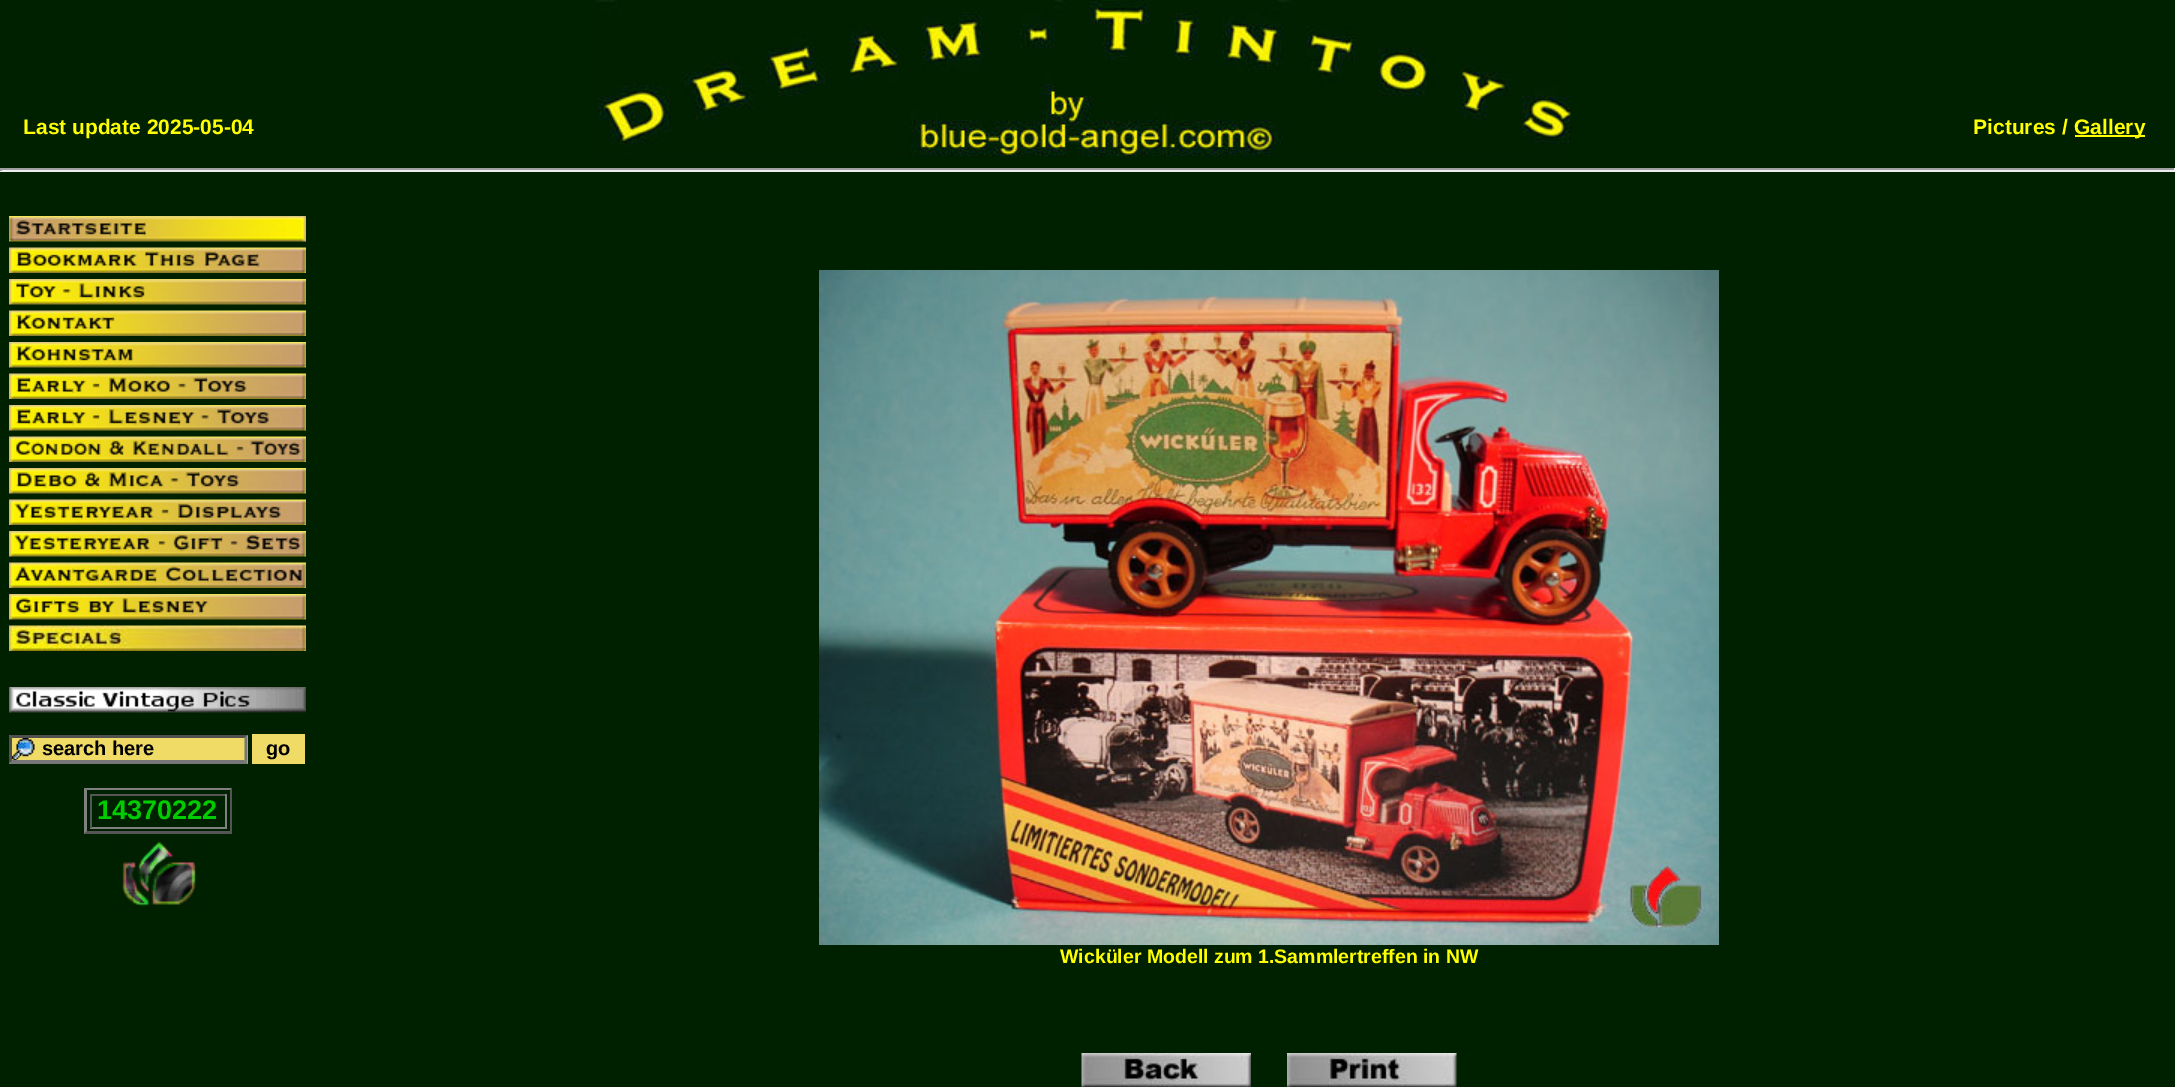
%!PS
<< /PageSize [2175 1087] >> setpagedevice
/rgb { dup -16 bitshift 255 div exch dup -8 bitshift 255 and 255 div exch 255 and 255 div setrgbcolor } def
/font { [ exch dup neg 0 0 3 -1 roll 0 0 ] selectfont } def
/text { moveto show } def
/picture { 5 dict begin { /h /w /y /x /name } { exch def } forall
  gsave x y translate w h scale
  w h 8 [w 0 0 h 0 0] name (r) file false 3 colorimage grestore end } def
0 1087 translate 1 -1 scale
4 setmiterlimit
/s1 { /LiberationSans-Bold 21 font 16#FFFF00 rgb } def
/s2 { /LiberationSans-Bold 20 font 16#000000 rgb } def
/s3 { /LiberationSans-Bold 27 font 16#00CC00 rgb } def
/s4 { /LiberationSans-Bold 19.5 font 16#FFFF00 rgb } def
16#002100 rgb
0 0 2175 1087 rectfill
s1
(Last update 2025-05-04) 23 134 text
(pic1.raw) 596 0 975 157 picture
(Pictures /) 1973 134 text
2075 135 70 2 rectfill
(Gallery) 2074 134 text
16#9F9F9F rgb
0 168 2175 2 rectfill
16#EEEEEE rgb
2174 168 1 3 rectfill
0 170 2175 2 rectfill
16#9F9F9F rgb
0 168 2 3 rectfill
(pic2.raw) 9 216 297 26 picture
(pic3.raw) 9 247 297 26 picture
(pic4.raw) 9 279 297 26 picture
(pic5.raw) 9 310 297 26 picture
(pic6.raw) 9 342 297 26 picture
(pic7.raw) 9 373 297 26 picture
(pic8.raw) 9 405 297 26 picture
(pic9.raw) 9 436 297 26 picture
(pic10.raw) 9 468 297 26 picture
(pic11.raw) 9 499 297 26 picture
(pic12.raw) 9 531 297 26 picture
(pic13.raw) 9 562 297 26 picture
(pic14.raw) 9 594 297 26 picture
(pic15.raw) 9 625 297 26 picture
(pic16.raw) 9 687 297 26 picture
16#F0DB66 rgb
9 735 239 29 rectfill
(pic17.raw) 12 738 23 22 picture
16#4F4F4F rgb
9 735 moveto 248 735 lineto 244 738 lineto 12 738 lineto closepath fill
16#767676 rgb
247.5 735 moveto 247.5 763.5 lineto 244.5 760.5 lineto 244.5 738 lineto closepath fill
248 764 moveto 9 764 lineto 12 760 lineto 244 760 lineto closepath fill
16#4F4F4F rgb
9 763.5 moveto 9 735 lineto 12 738 lineto 12 760.5 lineto closepath fill
s2
(search here) 42 755 text
16#F0DB66 rgb
252 734 53 30 rectfill
s2
(go) 266 755 text
16#808080 rgb
84 788 moveto 232 788 lineto 230 790 lineto 87 790 lineto closepath fill
16#555555 rgb
232 788 moveto 232 834 lineto 230 831 lineto 230 790 lineto closepath fill
232 834 moveto 84 834 lineto 87 831 lineto 230 831 lineto closepath fill
16#808080 rgb
84 834 moveto 84 788 lineto 87 790 lineto 87 831 lineto closepath fill
16#555555 rgb
90 794 137 2 rectfill
16#808080 rgb
225 794 2 34 rectfill
90 827 137 2 rectfill
16#555555 rgb
90 794 2 34 rectfill
s3
(14370222) 97 819 text
(pic18.raw) 122 841 74 66 picture
(pic19.raw) 819 270 900 675 picture
s4
(Wicküler Modell zum 1.Sammlertreffen in NW) 1060 963 text
(pic20.raw) 1081 1053 170 34 picture
(pic21.raw) 1287 1053 170 34 picture
showpage
